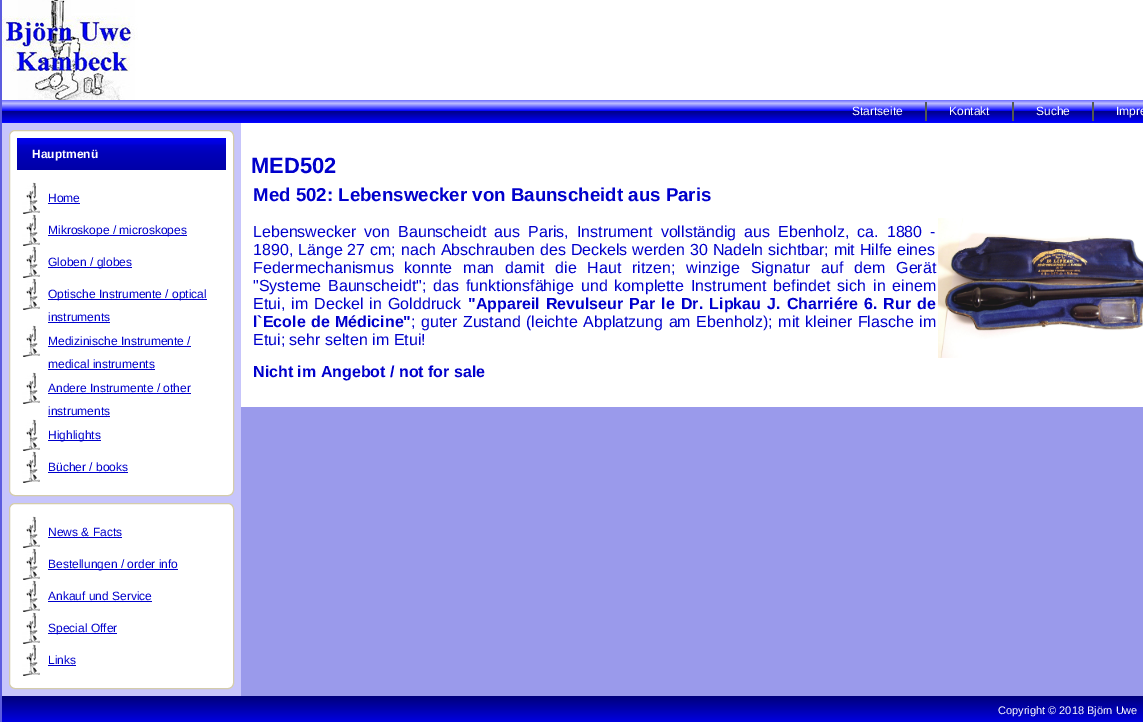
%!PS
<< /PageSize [1143 722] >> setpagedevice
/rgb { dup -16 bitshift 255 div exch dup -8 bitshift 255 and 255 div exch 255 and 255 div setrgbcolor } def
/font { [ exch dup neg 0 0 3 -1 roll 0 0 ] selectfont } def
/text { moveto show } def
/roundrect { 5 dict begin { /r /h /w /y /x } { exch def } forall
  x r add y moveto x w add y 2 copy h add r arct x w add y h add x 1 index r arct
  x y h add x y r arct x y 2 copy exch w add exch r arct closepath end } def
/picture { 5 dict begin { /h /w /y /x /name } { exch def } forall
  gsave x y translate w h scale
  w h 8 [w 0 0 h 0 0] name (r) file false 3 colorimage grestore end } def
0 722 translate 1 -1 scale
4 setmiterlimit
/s1 { /LiberationSans-Regular 12 font 16#FFFFFF rgb } def
/s2 { /LiberationSans-Bold 12 font 16#FFFFFF rgb } def
/s3 { /LiberationSans-Regular 12 font 16#0000CC rgb } def
/s4 { /LiberationSans-Bold 22 font 16#0000CC rgb } def
/s5 { /LiberationSans-Bold 18.7 font 16#0000CC rgb } def
/s6 { /LiberationSans-Regular 16 font 16#0000CC rgb } def
/s7 { /LiberationSans-Bold 16 font 16#0000CC rgb } def
/s8 { /LiberationSans-Regular 11 font 16#FFFFFF rgb } def
16#9A9AEB rgb
0 0 1143 722 rectfill
16#5C5CDF rgb
0 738 moveto 0 0 lineto 2 0 lineto 2 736 lineto closepath fill
(pic1.raw) 2 0 1141 100 picture
gsave 2 100 moveto 1143 100 lineto 1143 123 lineto 2 123 lineto closepath clip newpath
<< /ShadingType 2 /ColorSpace /DeviceRGB /Coords [600 100 600 123] /Extend [true true] /Function << /FunctionType 3 /Domain [0 1] /Functions [<< /FunctionType 2 /Domain [0 1] /C0 [0.42 0.42 1] /C1 [0.741 0.741 1] /N 1 >> << /FunctionType 2 /Domain [0 1] /C0 [0.741 0.741 1] /C1 [0 0 1] /N 1 >> << /FunctionType 2 /Domain [0 1] /C0 [0 0 1] /C1 [0 0 0.941] /N 1 >> << /FunctionType 2 /Domain [0 1] /C0 [0 0 0.541] /C1 [0 0 1] /N 1 >> << /FunctionType 2 /Domain [0 1] /C0 [0 0 1] /C1 [0.02 0.02 1] /N 1 >>] /Bounds [0.15 0.47 0.5 0.98] /Encode [0 1 0 1 0 1 0 1 0 1] >> >> shfill grestore
s1
(Startseite) 852 115 text
16#52594F rgb
925 102 2 19 rectfill
s1
(Kontakt) 949 115 text
16#52594F rgb
1012 102 2 19 rectfill
s1
(Suche) 1036 115 text
16#52594F rgb
1092 102 2 19 rectfill
s1
(Impre) 1116 115 text
16#C7C5FB rgb
2 123 239 573 rectfill
16#FFFFFF rgb
9.5 130.5 224 365 5.5 roundrect gsave fill grestore
16#D4CCAA rgb
stroke
gsave 17 138 209 32 3 roundrect clip newpath
<< /ShadingType 2 /ColorSpace /DeviceRGB /Coords [122 138 122 170] /Extend [true true] /Function << /FunctionType 3 /Domain [0 1] /Functions [<< /FunctionType 2 /Domain [0 1] /C0 [0 0 0.941] /C1 [0 0 0.898] /N 1 >> << /FunctionType 2 /Domain [0 1] /C0 [0 0 0.898] /C1 [0 0 0.859] /N 1 >> << /FunctionType 2 /Domain [0 1] /C0 [0 0 0.8] /C1 [0 0 0.722] /N 1 >> << /FunctionType 2 /Domain [0 1] /C0 [0 0 0.722] /C1 [0 0 0.659] /N 1 >>] /Bounds [0.1 0.2 0.5] /Encode [0 1 0 1 0 1 0 1] >> >> shfill grestore
s2
(Hauptmenü) 32 158 text
(pic2.raw) 22 182 18 32 picture
s3
(Home) 48 202 text
48 203 32 1 rectfill
(pic2.raw) 22 214 18 32 picture
48 235 139 1 rectfill
(Mikroskope / microskopes) 48 234 text
(pic2.raw) 22 246 18 32 picture
48 267 84 1 rectfill
(Globen / globes) 48 266 text
(pic2.raw) 22 278 18 32 picture
48 299 159 1 rectfill
(Optische Instrumente / optical) 48 298 text
(instruments) 48 321 text
48 322 62 1 rectfill
(pic2.raw) 22 325 18 32 picture
(Medizinische Instrumente /) 48 345 text
48 346 143 1 rectfill
(medical instruments) 48 368 text
48 369 107 1 rectfill
(pic2.raw) 22 372 18 32 picture
(Andere Instrumente / other) 48 392 text
48 393 143 1 rectfill
(instruments) 48 415 text
48 416 62 1 rectfill
(pic2.raw) 22 419 18 32 picture
48 440 53 1 rectfill
(Highlights) 48 439 text
(pic2.raw) 22 451 18 32 picture
(Bücher / books) 48 471 text
48 472 80 1 rectfill
16#FFFFFF rgb
9.5 503.5 224 185 5.5 roundrect gsave fill grestore
16#D4CCAA rgb
stroke
(pic2.raw) 22 516 18 32 picture
s3
(News & Facts) 48 536 text
48 537 74 1 rectfill
(pic2.raw) 22 548 18 32 picture
48 569 130 1 rectfill
(Bestellungen / order info) 48 568 text
(pic2.raw) 22 580 18 32 picture
(Ankauf und Service) 48 600 text
48 601 104 1 rectfill
(pic2.raw) 22 612 18 32 picture
48 633 69 1 rectfill
(Special Offer) 48 632 text
(pic2.raw) 22 644 18 32 picture
(Links) 48 664 text
48 665 28 1 rectfill
16#FFFFFF rgb
241 123 902 284 rectfill
s4
(MED502) 251 173 text
s5
(Med 502: Lebenswecker von Baunscheidt aus Paris) 253 201 text
/LiberationSans-Regular 16 font
253 237 moveto 3.6 0 32 (Lebenswecker von Baunscheidt aus Paris, Instrument vollständig aus Ebenholz, ca. 1880 -) widthshow
253 255 moveto 0.5 0 32 (1890, Länge 27 cm; nach Abschrauben des Deckels werden 30 Nadeln sichtbar; mit Hilfe eines) widthshow
253 273 moveto 6.4 0 32 (Federmechanismus konnte man damit die Haut ritzen; winzige Signatur auf dem Gerät) widthshow
253 291 moveto 2.6 0 32 ("Systeme Baunscheidt"; das funktionsfähige und komplette Instrument befindet sich in einem) widthshow
253 309 moveto 1.75 0 32 (Etui, im Deckel in Golddruck) widthshow
/LiberationSans-Bold 16 font
468 309 moveto 1.75 0 32 ("Appareil Revulseur Par le Dr. Lipkau J. Charriére 6. Rur de) widthshow
253 327 moveto 1 0 32 (l`Ecole de Médicine") widthshow
/LiberationSans-Regular 16 font
411 327 moveto 1 0 32 (; guter Zustand \(leichte Abplatzung am Ebenholz\); mit kleiner Flasche im) widthshow
(Etui; sehr selten im Etui!) 253 345 text
s7
(Nicht im Angebot / not for sale) 253 377 text
(pic3.raw) 938 218 205 140 picture
gsave 2 696 moveto 1143 696 lineto 1143 722 lineto 2 722 lineto closepath clip newpath
<< /ShadingType 2 /ColorSpace /DeviceRGB /Coords [600 696 600 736] /Extend [true true] /Function << /FunctionType 3 /Domain [0 1] /Functions [<< /FunctionType 2 /Domain [0 1] /C0 [0 0 0.478] /C1 [0 0 1] /N 1 >> << /FunctionType 2 /Domain [0 1] /C0 [0 0 1] /C1 [0.102 0.102 1] /N 1 >>] /Bounds [0.84] /Encode [0 1 0 1] >> >> shfill grestore
s8
(Copyright © 2018 Björn Uwe) 998 714 text
showpage
